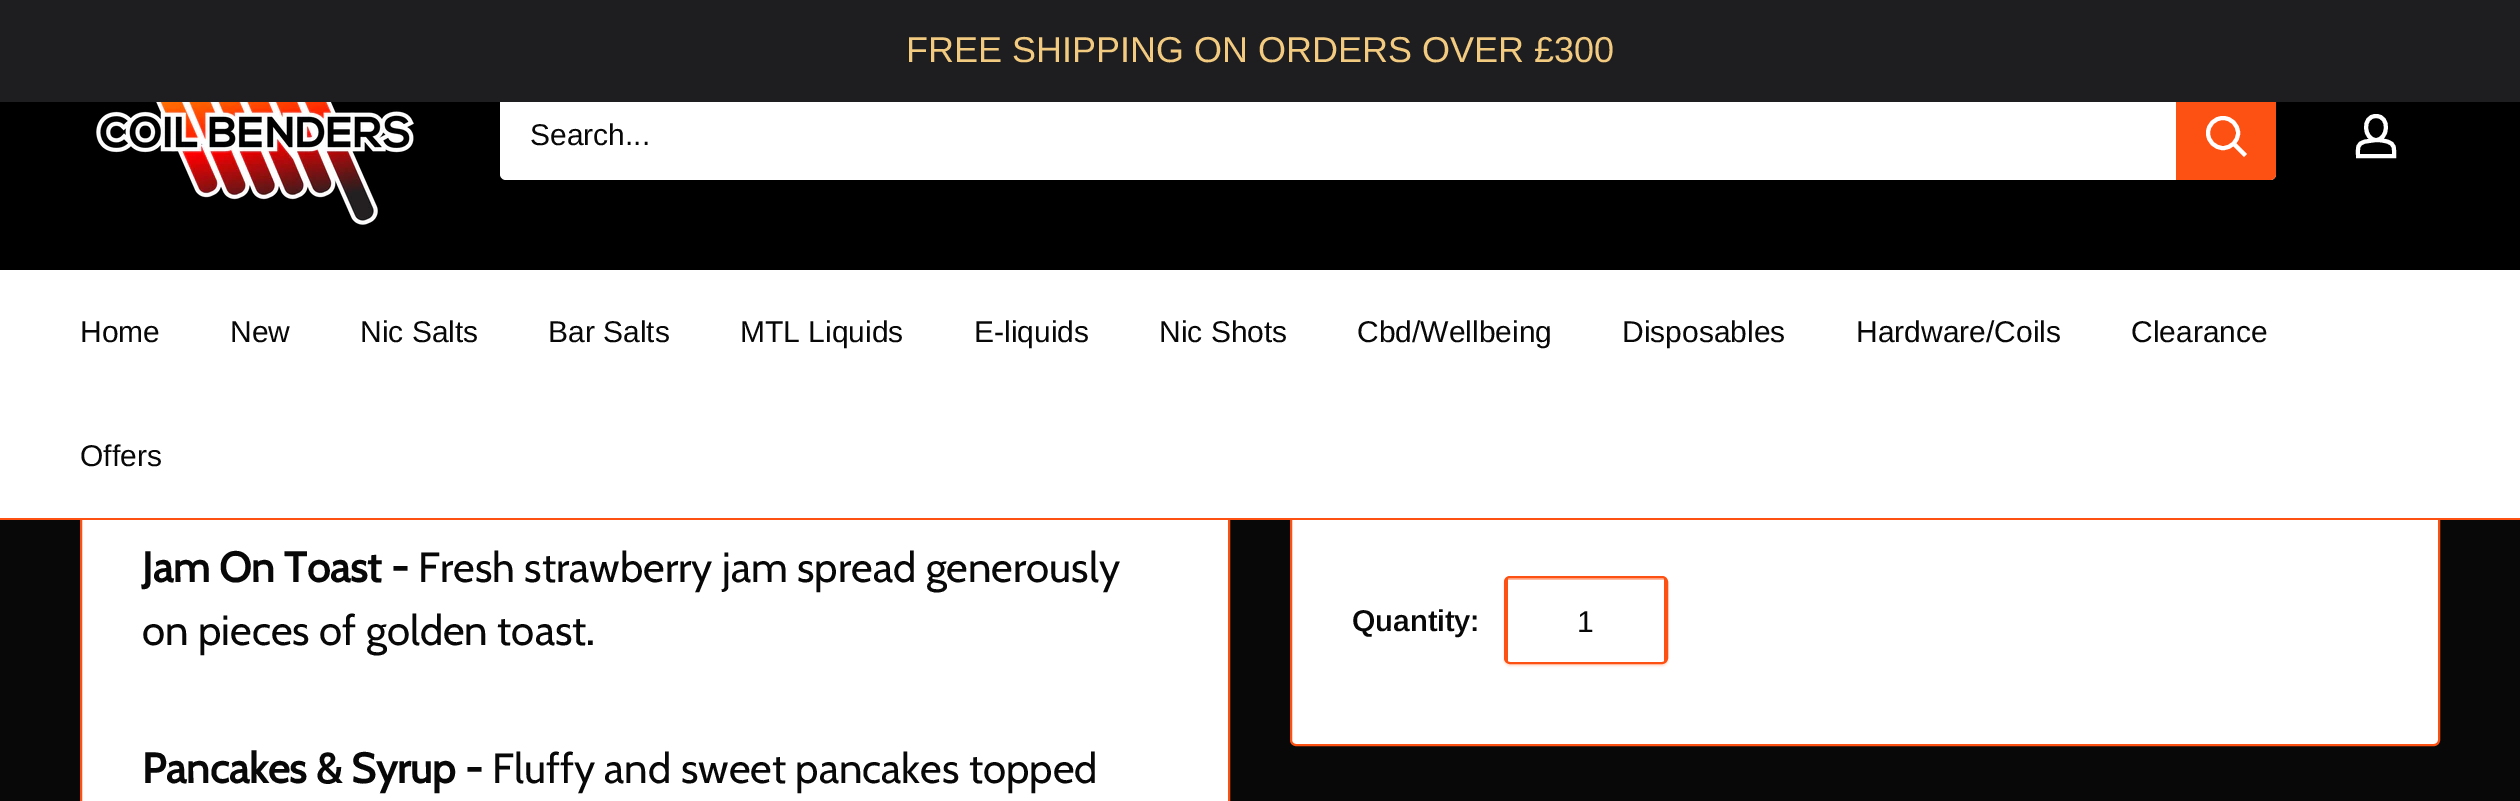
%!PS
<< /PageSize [2520 801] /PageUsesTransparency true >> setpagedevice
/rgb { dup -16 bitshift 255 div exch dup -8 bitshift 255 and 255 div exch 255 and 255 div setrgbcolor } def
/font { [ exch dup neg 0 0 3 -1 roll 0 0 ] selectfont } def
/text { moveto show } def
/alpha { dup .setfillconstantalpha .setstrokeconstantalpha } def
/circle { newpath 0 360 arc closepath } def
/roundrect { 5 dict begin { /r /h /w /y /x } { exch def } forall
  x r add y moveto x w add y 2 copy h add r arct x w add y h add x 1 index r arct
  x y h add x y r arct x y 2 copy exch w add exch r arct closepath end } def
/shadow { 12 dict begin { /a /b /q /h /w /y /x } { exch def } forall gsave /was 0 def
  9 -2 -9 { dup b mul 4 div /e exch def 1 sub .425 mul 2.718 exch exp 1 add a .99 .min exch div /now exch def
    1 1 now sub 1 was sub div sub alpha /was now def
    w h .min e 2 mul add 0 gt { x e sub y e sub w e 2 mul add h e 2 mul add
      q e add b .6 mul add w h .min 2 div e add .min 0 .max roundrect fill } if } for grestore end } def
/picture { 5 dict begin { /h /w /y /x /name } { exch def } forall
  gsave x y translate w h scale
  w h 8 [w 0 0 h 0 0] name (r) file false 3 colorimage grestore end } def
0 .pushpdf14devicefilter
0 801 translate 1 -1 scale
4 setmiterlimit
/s1 { /LiberationSans-Regular 36 font 16#F2CA80 rgb } def
/s2 { /Arimo-Regular 30 font 16#080808 rgb } def
/s3 { /Cabin-Bold 42 font 16#080808 rgb } def
/s4 { /Cabin-Regular 42 font 16#080808 rgb } def
/s5 { /Arimo-SemiBold 30 font 16#080808 rgb } def
16#080808 rgb
0 0 2520 801 rectfill
16#FFFFFF rgb
82 520 1146 281 rectfill
16#FD5113 rgb
2 setlinewidth
81 -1 1148 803 rectstroke
16#FFFFFF rgb
1291 -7 1148 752 5 roundrect gsave fill grestore
16#FD5113 rgb
stroke
16#000000 rgb
0 102 2520 168 rectfill
16#FFFFFF rgb
500 92 1776 88 6 roundrect fill
16#FD5113 rgb
2176 92 moveto 2270 92 lineto 2273.5 92 2276 94.5 2276 98 curveto 2276 174 lineto 2276 177.5 2273.5 180 2270 180 curveto 2176 180 lineto closepath fill
16#1E1E20 rgb
0 0 2520 102 rectfill
s1
(FREE SHIPPING ON ORDERS OVER £300) 906 62 text
(pic1.raw) 96 102 318 123 picture
s2
(Search...) 530 145 text
16#FFFFFF rgb
4 setlinewidth
2 setlinecap
2244 154 moveto 2234 144 lineto stroke
0 setlinecap
2223 133 15 circle stroke
2376 140 moveto 2380 140 2383.5 140.5 2387 141.5 curveto 2395.5 144 2394 148.5 2394 156 curveto 2358 156 lineto 2358 148 2356.5 143.5 2365.5 141.5 curveto closepath 2376 140 moveto 2364 140 2361.5 116 2376 116 curveto 2390.5 116 2388 140 2376 140 curveto closepath stroke
0 270 2520 248 rectfill
16#FD5113 rgb
0 518 2520 2 rectfill
s2
(Home) 80 342 text
(New) 230 342 text
(Nic Salts) 360 342 text
(Bar Salts) 548 342 text
(MTL Liquids) 740 342 text
(E-liquids) 974 342 text
(Nic Shots) 1159 342 text
(Cbd/Wellbeing) 1357 342 text
(Disposables) 1622 342 text
(Hardware/Coils) 1856 342 text
(Clearance) 2131 342 text
(Offers) 80 466 text
s3
(Jam On Toast -) 142 582 text
s4
(Fresh strawberry jam spread generously) 418 582 text
(on pieces of golden toast.) 142 645 text
s3
(Pancakes & Syrup -) 142 783 text
s4
(Fluffy and sweet pancakes topped) 492 783 text
s5
(Quantity:) 1352 631 text
gsave
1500 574 moveto 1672 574 lineto 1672 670 lineto 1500 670 lineto closepath 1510 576 moveto 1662 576 lineto 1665.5 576 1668 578.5 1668 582 curveto 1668 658 lineto 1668 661.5 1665.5 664 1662 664 curveto 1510 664 lineto 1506.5 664 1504 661.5 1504 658 curveto 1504 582 lineto 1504 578.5 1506.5 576 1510 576 curveto closepath eoclip newpath
16#FD5113 rgb
1504 578 164 88 6 1 0.2 shadow
grestore
16#FD5113 rgb
2 setlinewidth
1505 577 162 86 5 roundrect stroke
0.4 alpha
1508 578 156 2 rectfill
1 alpha
1664 578 2 84 rectfill
1506 578 2 84 rectfill
s2
(1) 1577 632 text
.poppdf14devicefilter showpage
